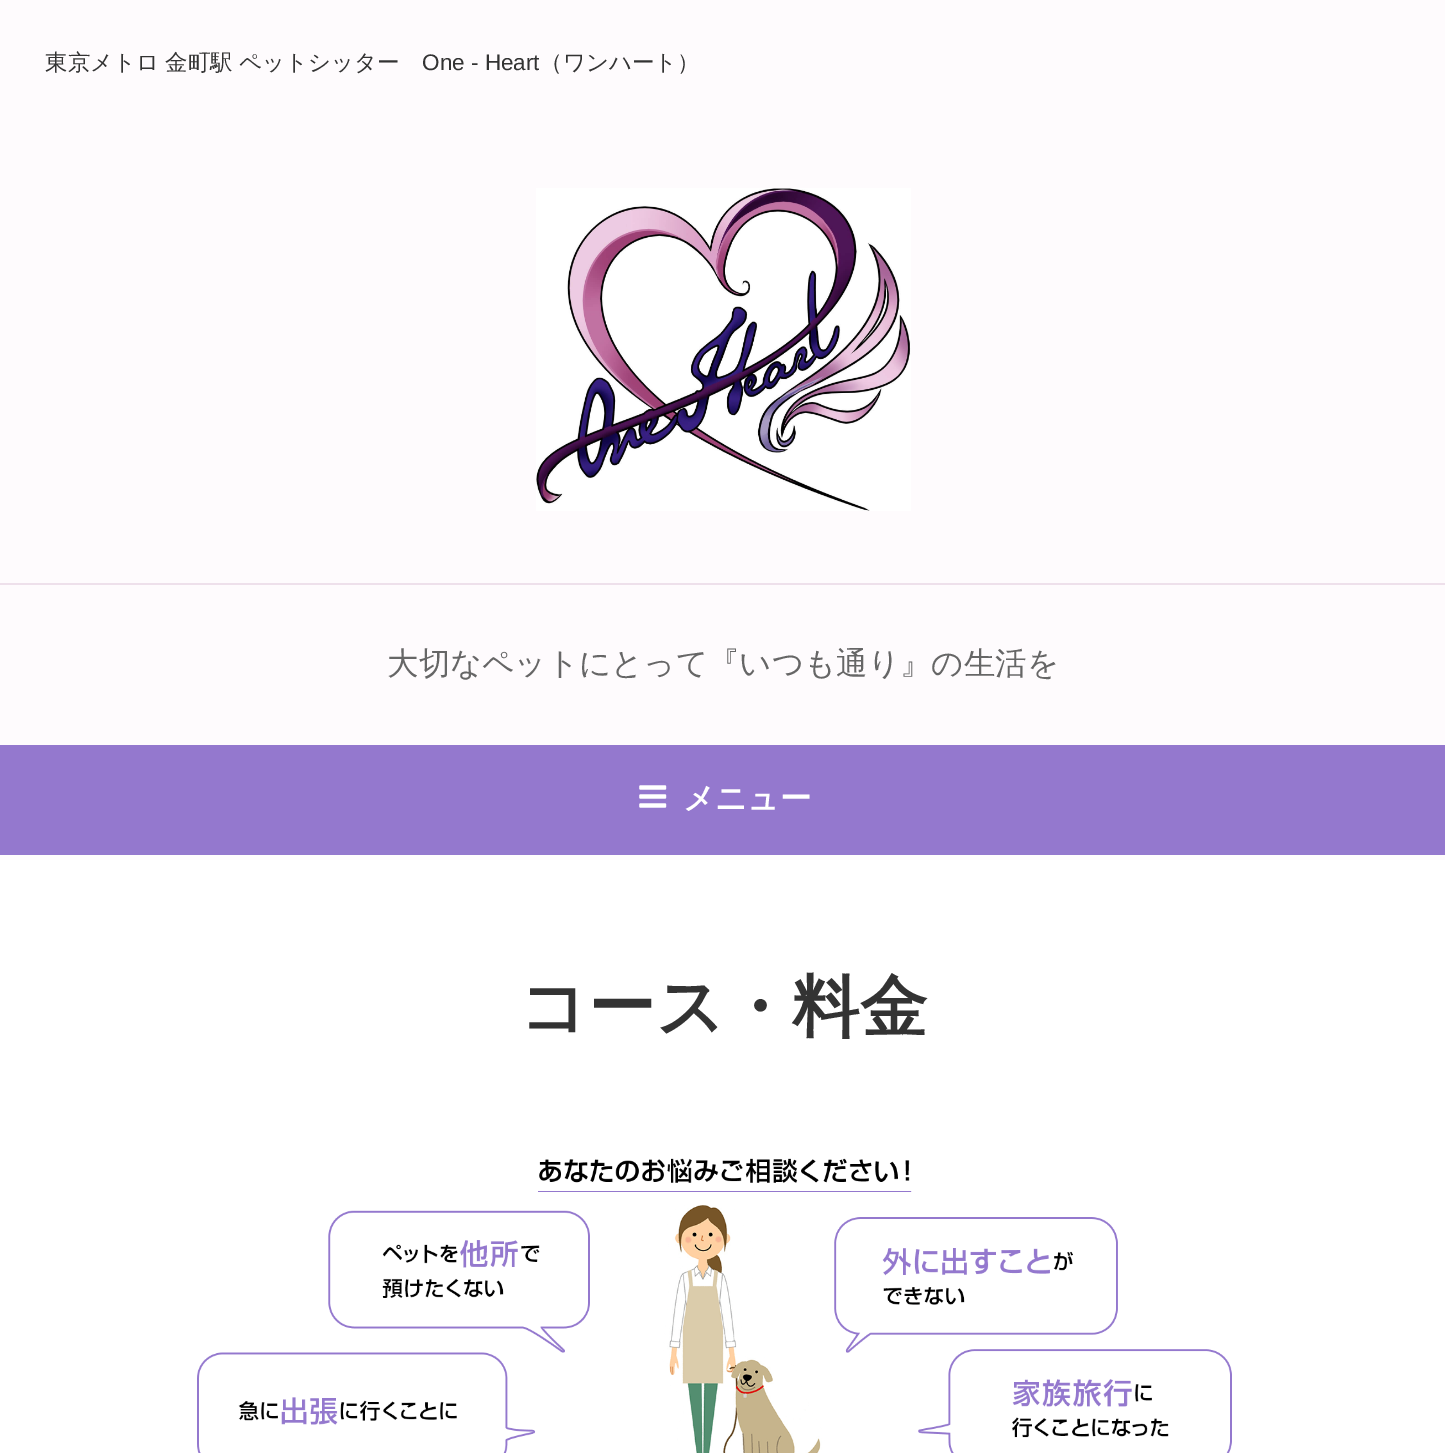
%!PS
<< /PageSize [1445 1453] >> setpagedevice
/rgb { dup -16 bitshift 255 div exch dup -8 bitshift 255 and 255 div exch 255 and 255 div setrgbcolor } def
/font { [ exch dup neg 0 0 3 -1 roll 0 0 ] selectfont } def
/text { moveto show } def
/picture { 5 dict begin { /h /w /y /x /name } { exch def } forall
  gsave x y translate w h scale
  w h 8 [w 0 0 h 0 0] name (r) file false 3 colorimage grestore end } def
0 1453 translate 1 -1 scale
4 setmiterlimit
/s1 { /WenQuanYiZenHei-Medium 22.5 font 16#333333 rgb } def
/s2 { /LiberationSans-Regular 22.5 font 16#333333 rgb } def
/s3 { /WenQuanYiZenHei-Medium 31.5 font 16#666666 rgb } def
/s4 { /WenQuanYiZenHei-Bold 31.5 font 16#FFFFFF rgb } def
/s5 { /WenQuanYiZenHei-Bold 67.5 font 16#333333 rgb } def
16#FFFFFF rgb
0 0 1445 1453 rectfill
16#FEFBFD rgb
0 0 1445 860 rectfill
s1
(東京メトロ) 45 70 text
(金町駅) 165 70 text
(ペットシッター) 239 70 text
s2
(One - Heart) 422 70 text
s1
(（ワンハート）) 540 70 text
(pic1.raw) 536 188 375 323 picture
16#EEE0EB rgb
0 583 1445 2 rectfill
s3
(大切なペットにとって『いつも通り』の生活を) 387 674 text
16#9478CE rgb
0 745 1445 110 rectfill
(pic2.raw) 639 785 28 23 picture
s4
(メニュー) 683 809 text
s5
(コース・料金) 519 1030 text
(pic3.raw) 197 1158 1035 295 picture
showpage
